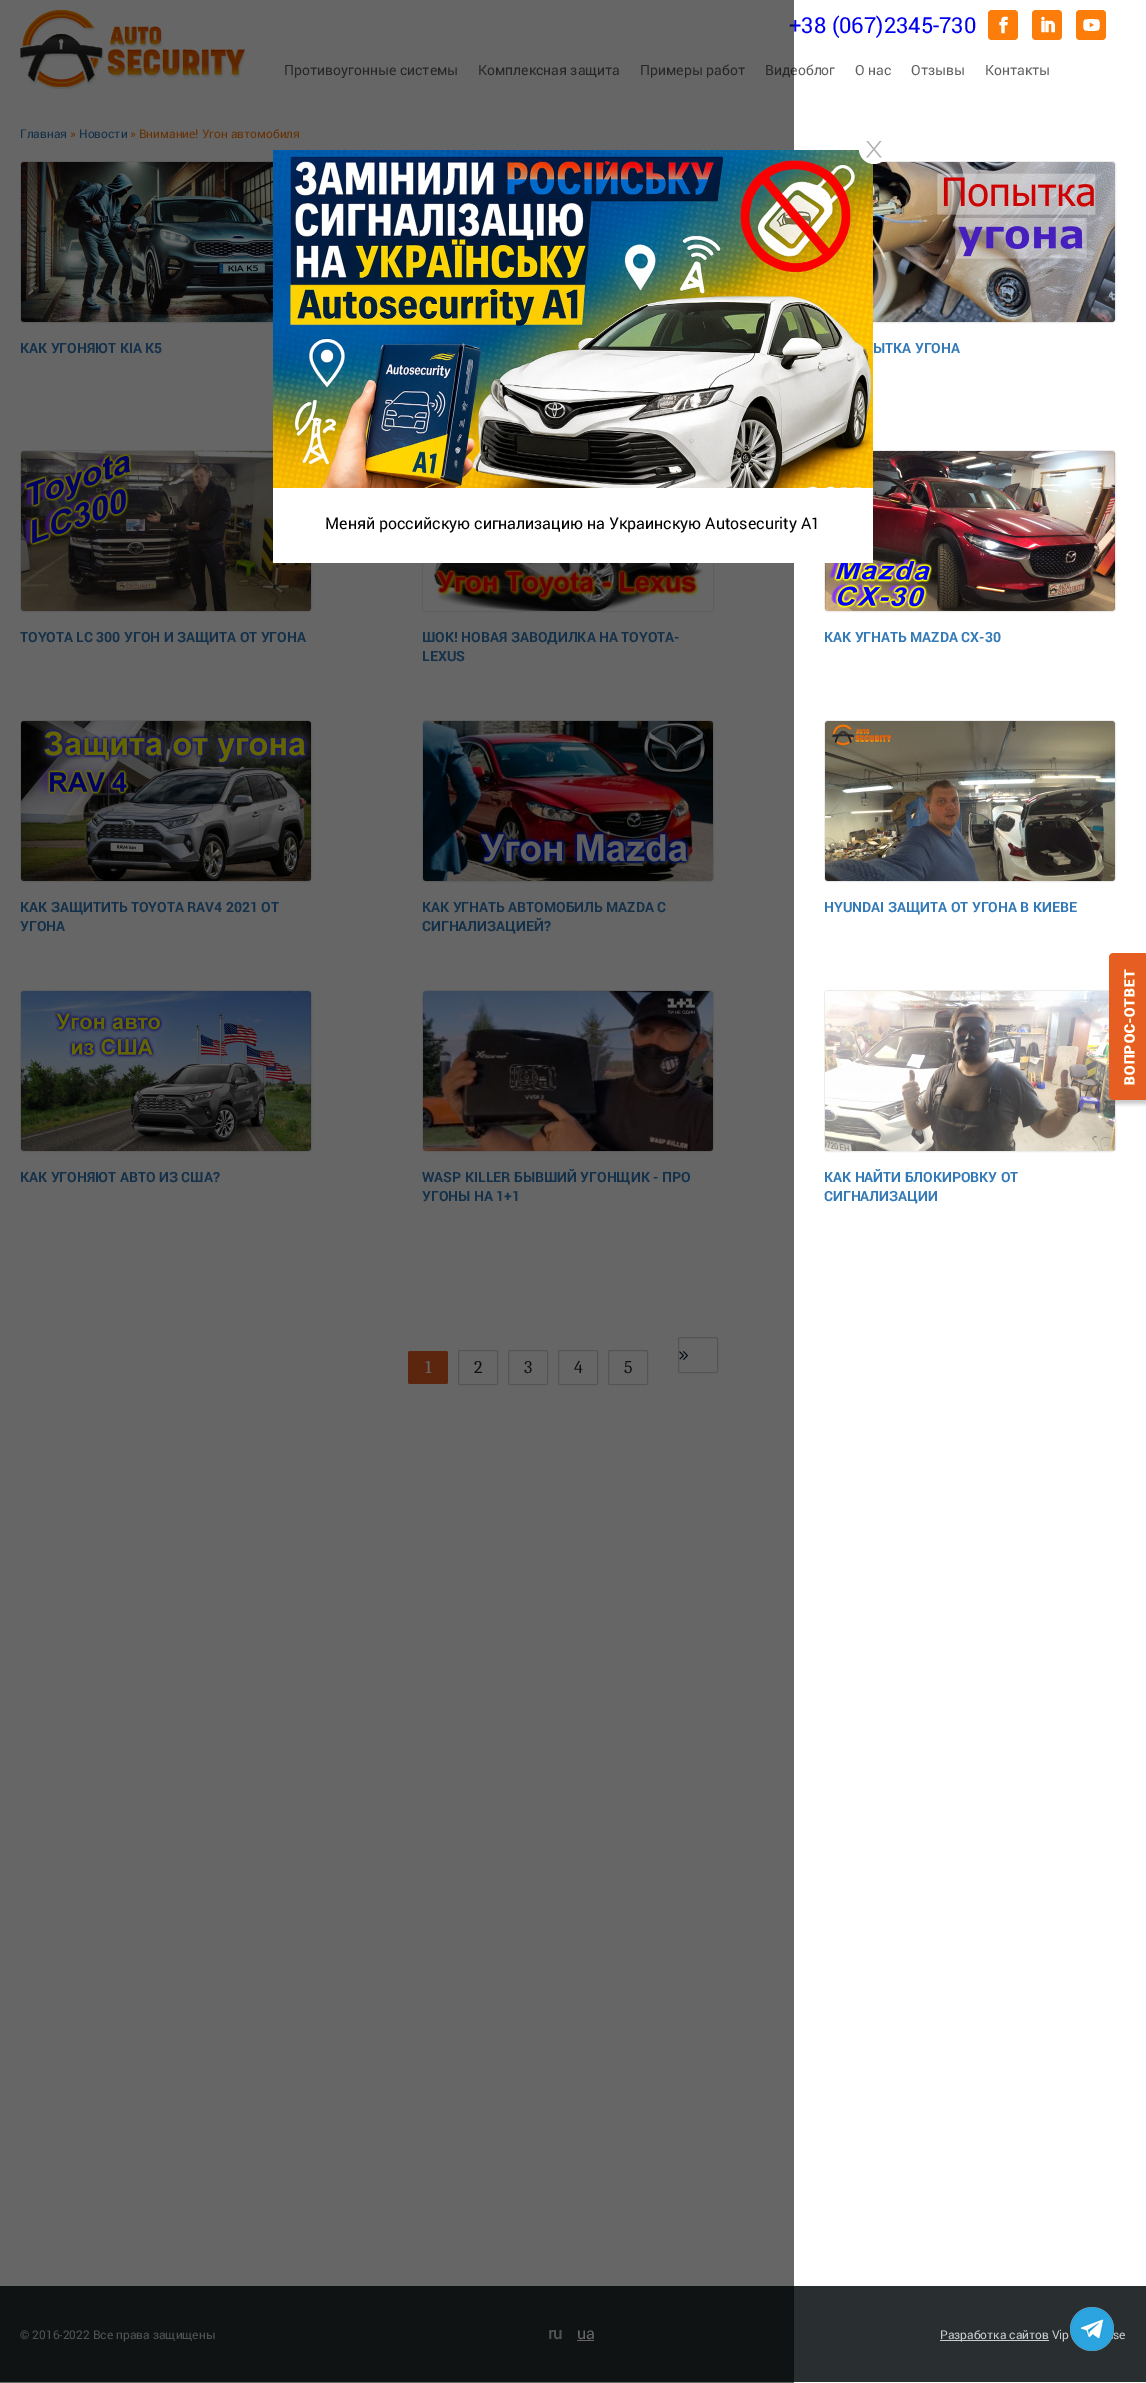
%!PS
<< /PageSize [1146 2383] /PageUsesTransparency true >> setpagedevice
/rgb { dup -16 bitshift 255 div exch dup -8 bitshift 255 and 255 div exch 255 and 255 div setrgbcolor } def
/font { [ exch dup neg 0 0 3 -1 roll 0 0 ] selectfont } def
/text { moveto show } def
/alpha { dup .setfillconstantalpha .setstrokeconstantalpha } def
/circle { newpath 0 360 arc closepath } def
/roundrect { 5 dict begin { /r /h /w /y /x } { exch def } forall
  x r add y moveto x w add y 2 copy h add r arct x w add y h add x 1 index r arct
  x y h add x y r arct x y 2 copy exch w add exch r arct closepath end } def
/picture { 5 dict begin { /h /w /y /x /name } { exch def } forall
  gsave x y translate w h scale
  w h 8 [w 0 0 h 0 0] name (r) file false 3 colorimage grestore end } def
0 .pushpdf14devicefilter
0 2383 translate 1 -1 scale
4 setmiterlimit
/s1 { /Roboto-Regular 22 font 16#0000EE rgb } def
/s2 { /Roboto-Regular 14 font 16#606060 rgb } def
/s3 { /Roboto-Regular 12 font 16#337AB7 rgb } def
/s4 { /Roboto-Regular 12 font 16#FD7D0B rgb } def
/s5 { /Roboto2-Bold 14 font 16#337AB7 rgb } def
/s6 { /Caladea-Regular 18 font 16#FFFFFF rgb } def
/s7 { /Caladea-Regular 18 font 16#292F31 rgb } def
/s8 { /Roboto-Regular 12 font 16#CCCCCC rgb } def
/s9 { /Roboto-Bold 16 font 16#CCCCCC rgb } def
/s10 { /Roboto-Regular 16 font 16#FFFFFF rgb } def
/s11 { /Roboto-Regular 16 font 16#000000 rgb } def
16#FFFFFF rgb
0 0 1146 2383 rectfill
(pic1.raw) 20 10 226 79 picture
s1
(+38 \(067\)2345-730) 789 33 text
s2
(Противоугонные системы) 284 75 text
(Комплексная защита) 478 75 text
(Примеры работ) 640 75 text
(Видеоблог) 765 75 text
s3
(Главная) 20 138 text
s4
(») 70 138 text
s3
(Новости) 79 138 text
s4
(» Внимание! Угон автомобиля) 130 138 text
16#ECECEC rgb
20.5 161.5 291 161 3.5 roundrect stroke
(pic5.raw) 21 162 252 160 picture
s5
(КАК УГОНЯЮТ KIA K5) 20 353 text
16#ECECEC rgb
20.5 450.5 291 161 3.5 roundrect stroke
(pic7.raw) 21 451 290 160 picture
s5
(TOYOTA LC 300 УГОН И ЗАЩИТА ОТ УГОНА) 20 642 text
16#ECECEC rgb
422.5 450.5 291 161 3.5 roundrect stroke
(pic8.raw) 423 563 290 48 picture
s5
(ШОК! НОВАЯ ЗАВОДИЛКА НА TOYOTA-) 422 642 text
(LEXUS) 422 661 text
16#ECECEC rgb
20.5 720.5 291 161 3.5 roundrect stroke
(pic10.raw) 21 721 290 160 picture
s5
(КАК ЗАЩИТИТЬ TOYOTA RAV4 2021 ОТ) 20 912 text
(УГОНА) 20 931 text
16#ECECEC rgb
422.5 720.5 291 161 3.5 roundrect stroke
(pic11.raw) 423 721 290 160 picture
s5
(КАК УГНАТЬ АВТОМОБИЛЬ MAZDA С) 422 912 text
(СИГНАЛИЗАЦИЕЙ?) 422 931 text
16#ECECEC rgb
20.5 990.5 291 161 3.5 roundrect stroke
(pic13.raw) 21 991 290 160 picture
s5
(КАК УГОНЯЮТ АВТО ИЗ США?) 20 1182 text
16#ECECEC rgb
422.5 990.5 291 161 3.5 roundrect stroke
(pic14.raw) 423 991 290 160 picture
s5
(WASP KILLER БЫВШИЙ УГОНЩИК - ПРО) 422 1182 text
(УГОНЫ НА 1+1) 422 1201 text
16#E75E22 rgb
408 1351 40 33 2 roundrect fill
s6
(1) 425 1373 text
16#D5D5D5 rgb
458.5 1350.5 39 34 1.5 roundrect stroke
s7
(2) 474 1373 text
16#D5D5D5 rgb
508.5 1350.5 39 34 1.5 roundrect stroke
s7
(3) 524 1373 text
16#D5D5D5 rgb
558.5 1350.5 39 34 1.5 roundrect stroke
s7
(4) 574 1373 text
16#D5D5D5 rgb
608.5 1350.5 39 34 1.5 roundrect stroke
s7
(5) 624 1373 text
16#D5D5D5 rgb
678.5 1337.5 39 35 1.5 roundrect stroke
(pic16.raw) 679 1351 9 9 picture
16#292F31 rgb
0 2286 1146 96 rectfill
s8
(© 2016-2022 Все права защищены) 20 2339 text
s9
(ru) 548 2339 text
s10
(ua) 577 2339 text
577 2340 17 1 rectfill
0.6 alpha
16#000000 rgb
0 0 794 2383 rectfill
1 alpha
16#FD7D0B rgb
988 10 30 30 4 roundrect fill
(pic2.raw) 999 16 9 18 picture
1032 10 30 30 4 roundrect fill
(pic3.raw) 1041 16 14 17 picture
1076 10 30 30 4 roundrect fill
(pic4.raw) 1083 19 17 12 picture
s2
(О нас) 855 75 text
(Отзывы) 911 75 text
(Контакты) 985 75 text
16#ECECEC rgb
824.5 161.5 291 161 3.5 roundrect stroke
(pic6.raw) 873 162 242 160 picture
s5
(ЫТКА УГОНА) 873 353 text
16#ECECEC rgb
824.5 450.5 291 161 3.5 roundrect stroke
(pic9.raw) 825 451 290 160 picture
s5
(КАК УГНАТЬ MAZDA CX-30) 824 642 text
16#ECECEC rgb
824.5 720.5 291 161 3.5 roundrect stroke
(pic12.raw) 825 721 290 160 picture
s5
(HYUNDAI ЗАЩИТА ОТ УГОНА В КИЕВЕ) 824 912 text
16#ECECEC rgb
824.5 990.5 291 161 3.5 roundrect stroke
(pic15.raw) 825 991 290 160 picture
s5
(КАК НАЙТИ БЛОКИРОВКУ ОТ) 824 1182 text
(СИГНАЛИЗАЦИИ) 824 1201 text
16#FFFFFF rgb
273 488 600 75 rectfill
(pic17.raw) 273 150 600 338 picture
874 149 15 circle fill
(pic18.raw) 866 141 16 17 picture
s11
(Меняй российскую сигнализацию на Украинскую Autosecurity A1) 325 529 text
(pic19.raw) 1109 953 37 154 picture
(pic20.raw) 1070 2307 44 44 picture
16#CCCCCC rgb
940 2340 109 1 rectfill
s8
(Разработка сайтов Vip) 940 2339 text
(se) 1113 2339 text
.poppdf14devicefilter showpage
